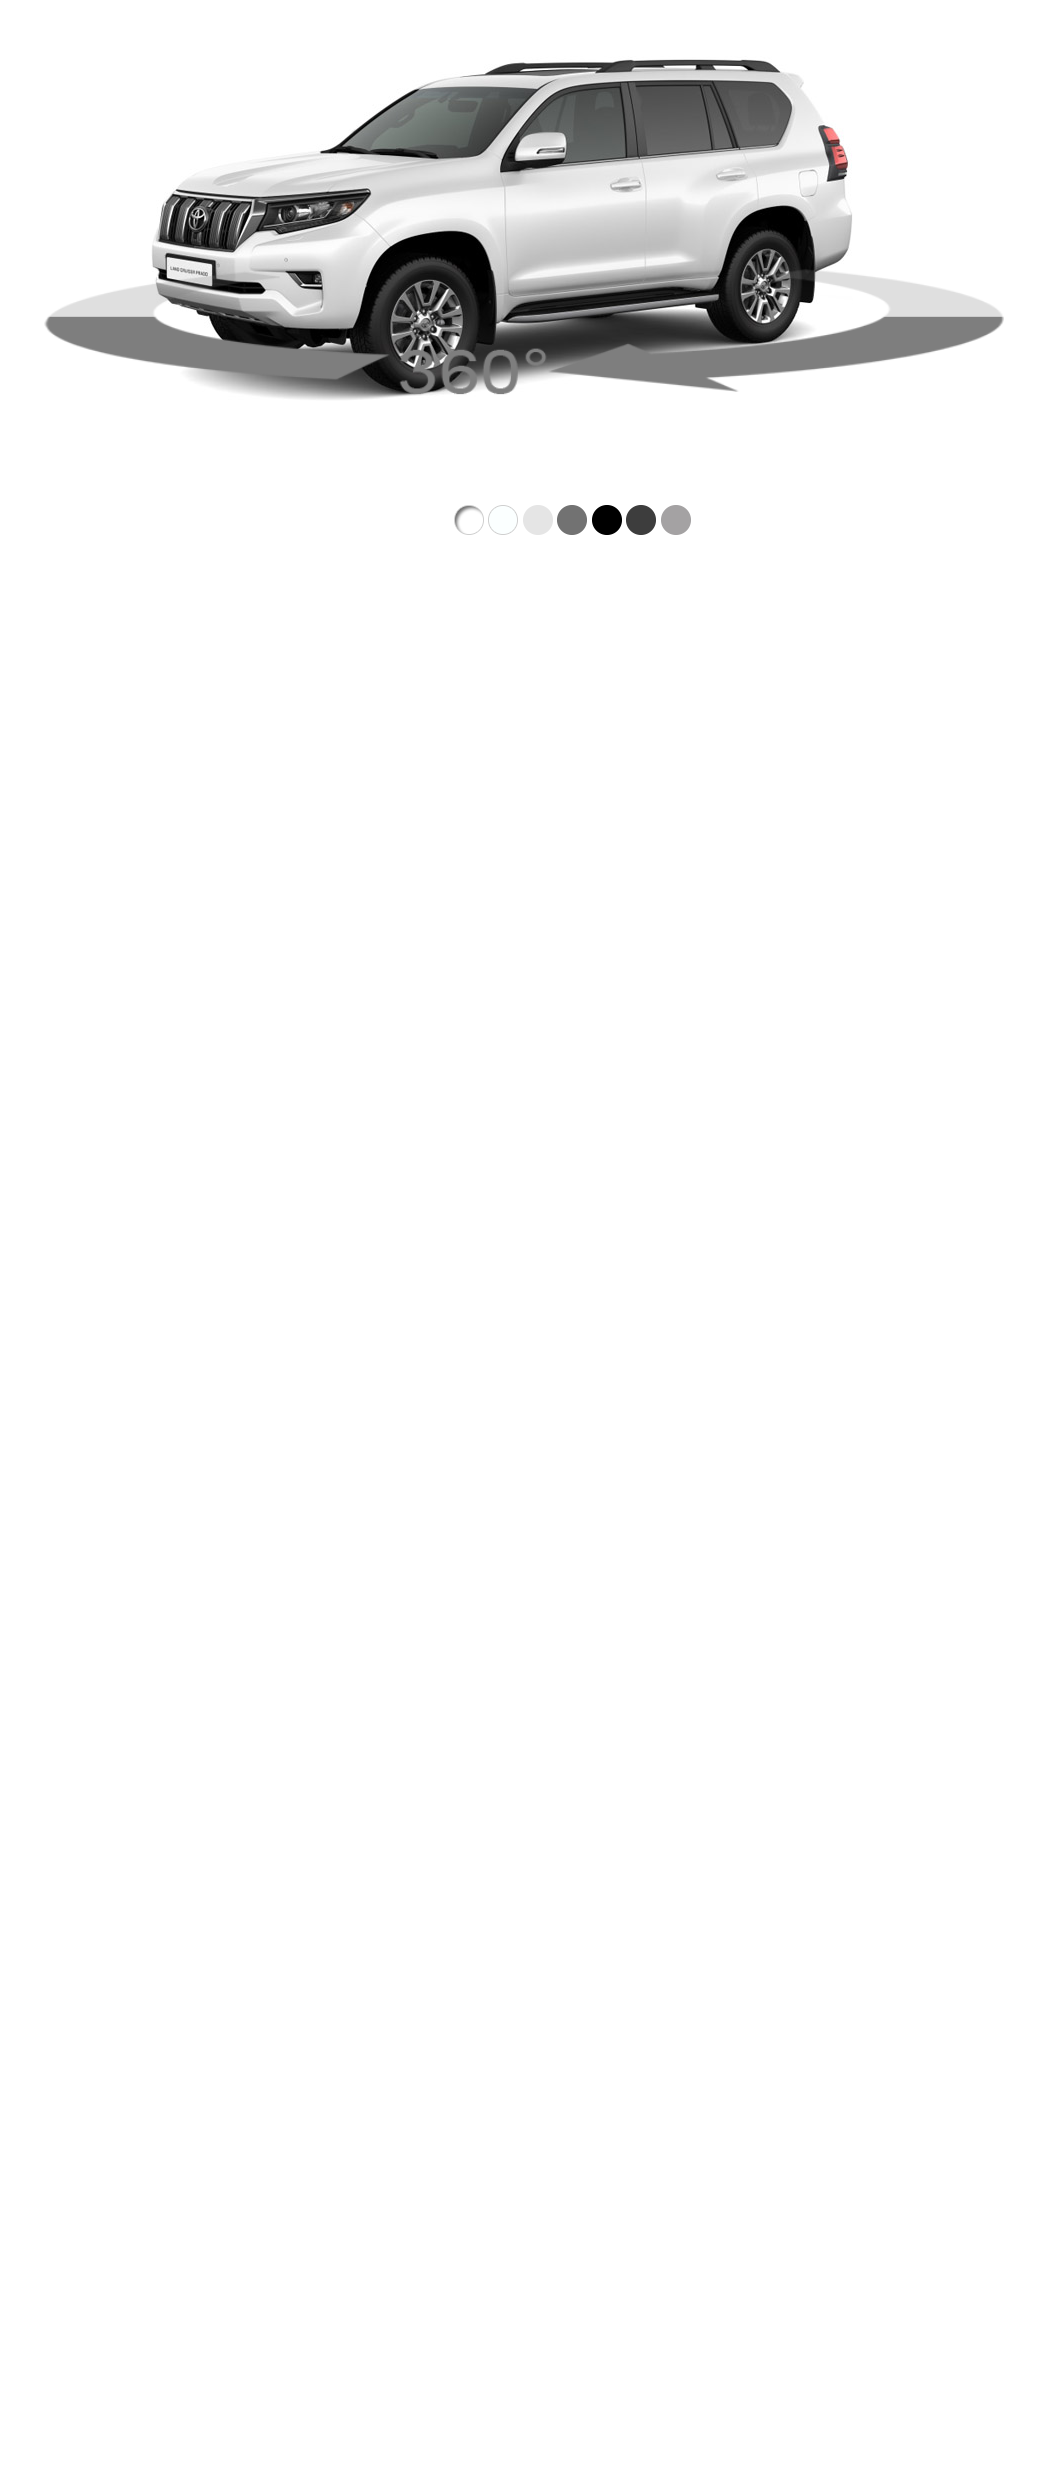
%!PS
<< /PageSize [1047 2488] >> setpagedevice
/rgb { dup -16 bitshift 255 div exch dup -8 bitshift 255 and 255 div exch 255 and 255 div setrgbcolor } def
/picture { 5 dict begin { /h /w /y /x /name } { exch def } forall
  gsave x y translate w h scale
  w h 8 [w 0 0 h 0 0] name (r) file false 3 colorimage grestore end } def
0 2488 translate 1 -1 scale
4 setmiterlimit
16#FFFFFF rgb
0 0 1047 2488 rectfill
(pic1.raw) 151 56 702 345 picture
(pic2.raw) 44 269 960 126 picture
(pic3.raw) 454 505 30 30 picture
(pic4.raw) 488 505 30 30 picture
(pic5.raw) 523 505 30 30 picture
(pic6.raw) 557 505 30 30 picture
(pic7.raw) 592 505 30 30 picture
(pic8.raw) 626 505 30 30 picture
(pic9.raw) 661 505 30 30 picture
showpage
